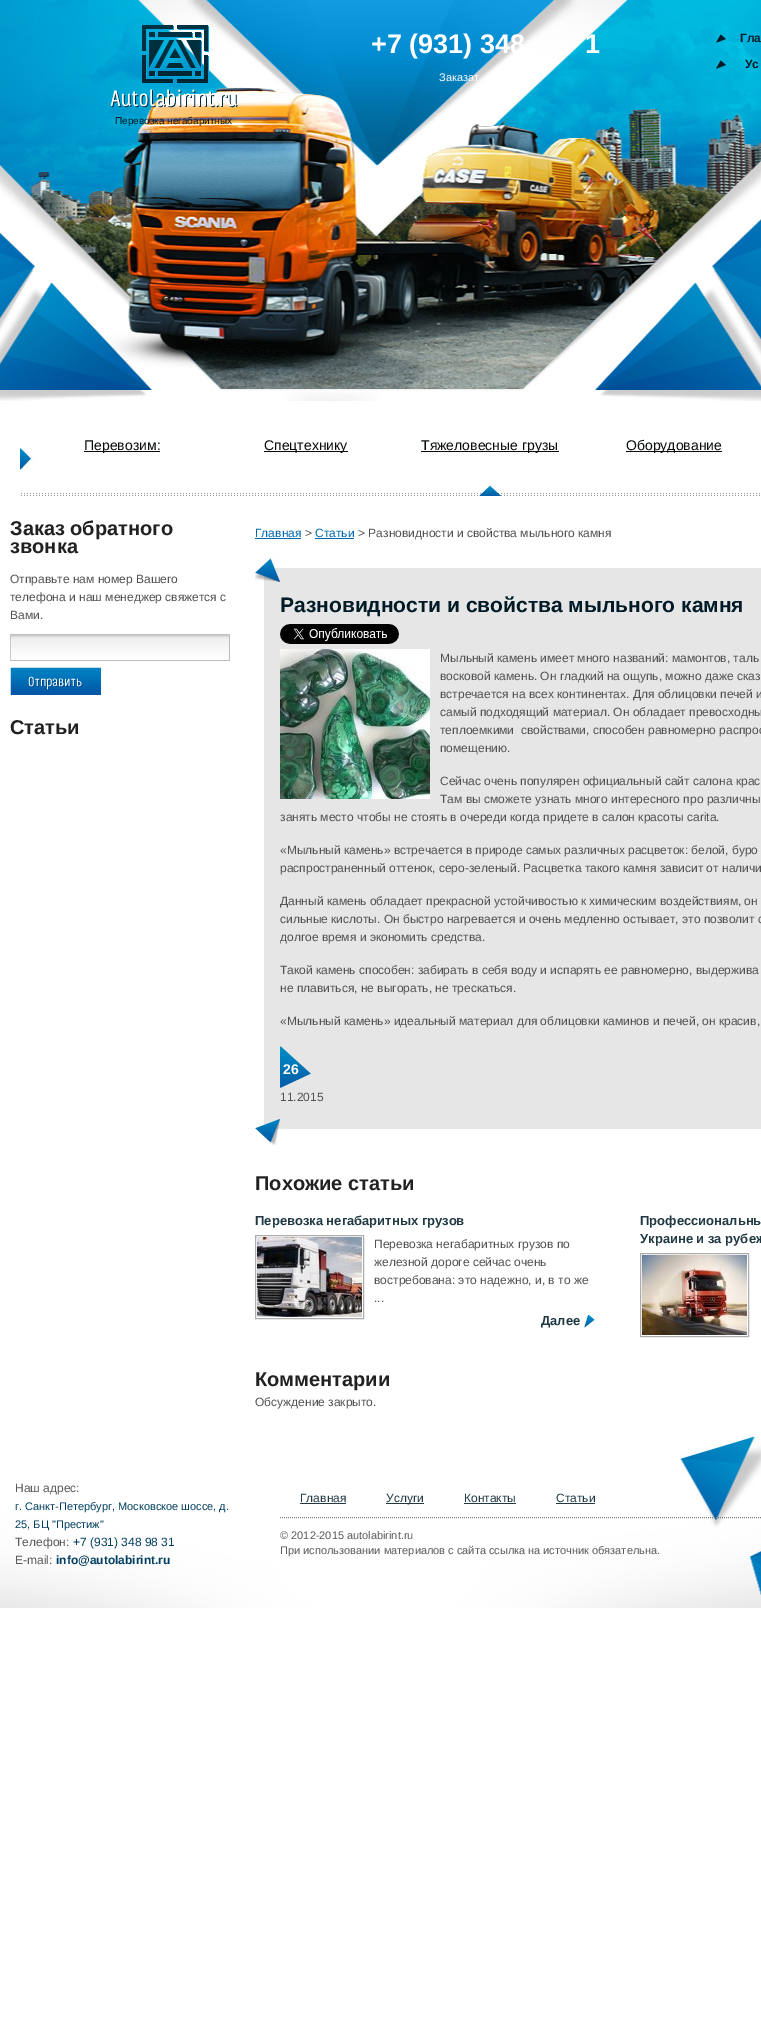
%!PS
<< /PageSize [761 2024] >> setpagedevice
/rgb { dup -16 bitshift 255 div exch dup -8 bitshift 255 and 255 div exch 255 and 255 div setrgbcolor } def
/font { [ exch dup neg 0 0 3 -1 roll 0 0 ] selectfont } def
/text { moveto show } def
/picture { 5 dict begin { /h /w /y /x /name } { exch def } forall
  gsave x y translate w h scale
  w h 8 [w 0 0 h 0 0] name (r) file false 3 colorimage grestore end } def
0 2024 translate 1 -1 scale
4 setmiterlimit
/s1 { /LiberationSans-Bold 27 font 16#FFFFFF rgb } def
/s2 { /LiberationSans-Regular 11 font 16#FFFFFF rgb } def
/s3 { /LiberationSans-Bold 12 font 16#001B26 rgb } def
/s4 { /LiberationSans-Regular 10 font 16#001B26 rgb } def
/s5 { /LiberationSans-Regular 14 font 16#070C0A rgb } def
/s6 { /LiberationSans-Bold 20 font 16#212121 rgb } def
/s7 { /LiberationSans-Regular 12 font 16#525252 rgb } def
/s8 { /LiberationSans-Regular 12 font 16#0069B1 rgb } def
/s9 { /LiberationSans-Bold 21 font 16#001B26 rgb } def
/s10 { /LiberationSans-Bold 14 font 16#FFFFFF rgb } def
/s11 { /LiberationSans-Bold 13 font 16#213943 rgb } def
/s12 { /LiberationSans-Regular 12 font 16#5A5A5A rgb } def
/s13 { /LiberationSans-Regular 11 font 16#003F61 rgb } def
/s14 { /LiberationSans-Regular 12 font 16#003F61 rgb } def
/s15 { /LiberationSans-Bold 12 font 16#003F61 rgb } def
/s16 { /LiberationSans-Regular 12 font 16#213943 rgb } def
/s17 { /LiberationSans-Regular 11 font 16#5A5A5A rgb } def
16#FFFFFF rgb
0 0 761 2024 rectfill
(pic1.raw) 0 1436 761 172 picture
(pic2.raw) 0 0 761 401 picture
s1
(+7 \(931\) 348) 371 53 text
(1) 585 53 text
s2
(Заказат) 439 81 text
(pic3.raw) 715 34 11 9 picture
s3
(Гла) 740 42 text
(pic4.raw) 715 60 11 9 picture
(Ус) 745 68 text
(pic5.raw) 110 25 128 83 picture
s4
(Перевозка негабаритных) 115 124 text
(pic6.raw) 20 447 740 49 picture
16#070C0A rgb
84 451 76 1 rectfill
s5
(Перевозим:) 84 450 text
264 451 84 1 rectfill
(Спецтехнику) 264 450 text
421 451 138 1 rectfill
(Тяжеловесные грузы) 421 450 text
626 451 96 1 rectfill
(Оборудование) 626 450 text
s6
(Заказ обратного) 10 535 text
(звонка) 10 553 text
s7
(Отправьте нам номер Вашего) 10 583 text
(телефона и наш менеджер свяжется с) 10 601 text
(Вами.) 10 619 text
(pic7.raw) 10 634 220 27 picture
(pic8.raw) 10 667 91 28 picture
s6
(Статьи) 10 734 text
s8
(Главная) 255 537 text
255 538 46 1 rectfill
s7
(>) 305 537 text
s8
(Статьи) 315 537 text
315 538 39 1 rectfill
s7
(> Разновидности и свойства мыльного камня) 358 537 text
(pic9.raw) 255 552 506 44 picture
16#E6E6E6 rgb
264 596 497 510 rectfill
s9
(Разновидности и свойства мыльного камня) 280 612 text
(pic10.raw) 280 624 119 20 picture
(pic11.raw) 280 649 150 150 picture
s7
(Мыльный камень имеет много названий: мамонтов, таль) 440 662 text
(восковой камень. Он гладкий на ощупь, можно даже сказ) 440 680 text
(встречается на всех континентах. Для облицовки печей и) 440 698 text
(самый подходящий материал. Он обладает превосходны) 440 716 text
(теплоемкими  свойствами, способен равномерно распрос) 440 734 text
(помещению.) 440 752 text
(Сейчас очень популярен официальный сайт салона крас) 440 785 text
(Там вы сможете узнать много интересного про различны) 440 803 text
(занять место чтобы не стоять в очереди когда придете в салон красоты carita.) 280 821 text
(«Мыльный камень» встречается в природе самых различных расцветок: белой, буро) 280 854 text
(распространенный оттенок, серо-зеленый. Расцветка такого камня зависит от наличи) 280 872 text
(Данный камень обладает прекрасной устойчивостью к химическим воздействиям, он) 280 905 text
(сильные кислоты. Он быстро нагревается и очень медленно остывает, это позволит с) 280 923 text
(долгое время и экономить средства.) 280 941 text
(Такой камень способен: забирать в себя воду и испарять ее равномерно, выдержива) 280 974 text
(не плавиться, не выгорать, не трескаться.) 280 992 text
(«Мыльный камень» идеальный материал для облицовки каминов и печей, он красив,) 280 1025 text
(pic12.raw) 280 1046 31 42 picture
s10
(26) 283 1074 text
s7
(11.2015) 280 1101 text
(pic13.raw) 255 1106 506 40 picture
s6
(Похожие статьи) 255 1190 text
s11
(Перевозка негабаритных грузов) 255 1225 text
16#ADADAD rgb
255.5 1235.5 108 83 rectstroke
(pic14.raw) 257 1237 105 80 picture
s7
(Перевозка негабаритных грузов по) 374 1248 text
(железной дороге сейчас очень) 374 1266 text
(востребована: это надежно, и, в то же) 374 1284 text
(...) 374 1302 text
(pic15.raw) 584 1315 11 13 picture
s11
(Далее) 541 1325 text
(Профессиональны) 640 1225 text
(Украине и за рубеж) 640 1243 text
16#ADADAD rgb
640.5 1253.5 108 83 rectstroke
(pic16.raw) 642 1255 105 80 picture
s6
(Комментарии) 255 1386 text
s7
(Обсуждение закрыто.) 255 1406 text
s12
(Наш адрес:) 15 1492 text
s13
(г. Санкт-Петербург, Московское шоссе, д.) 15 1510 text
(25, БЦ "Престиж") 15 1528 text
s12
(Телефон:) 15 1546 text
s14
(+7 \(931\) 348 98 31) 73 1546 text
s12
(E-mail:) 15 1564 text
s15
(info@autolabirint.ru) 56 1564 text
16#7F7F7F rgb
[1 1] 0 setdash
280 1517.5 moveto 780 1517.5 lineto stroke
s16
(Главная) 300 1502 text
16#223943 rgb
300 1503 46 1 rectfill
386 1503 38 1 rectfill
s16
(Услуги) 386 1502 text
(Контакты) 464 1502 text
16#223943 rgb
464 1503 52 1 rectfill
s16
(Статьи) 556 1502 text
16#223943 rgb
556 1503 39 1 rectfill
s17
(© 2012-2015 autolabirint.ru) 280 1539 text
(При использовании материалов с сайта ссылка на источник обязательна.) 280 1554 text
showpage
